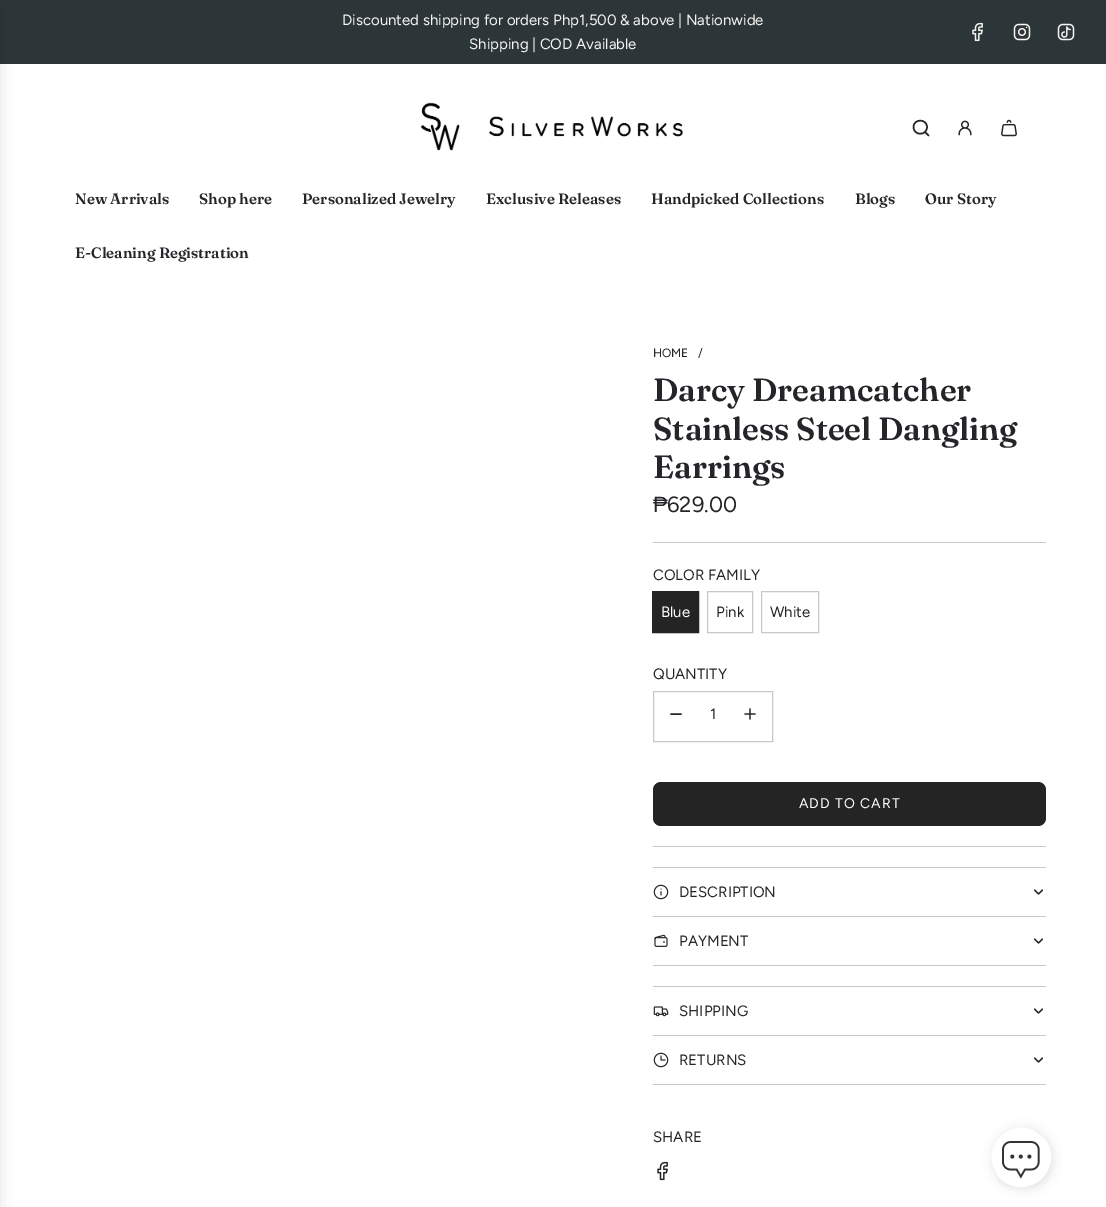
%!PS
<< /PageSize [1106 1207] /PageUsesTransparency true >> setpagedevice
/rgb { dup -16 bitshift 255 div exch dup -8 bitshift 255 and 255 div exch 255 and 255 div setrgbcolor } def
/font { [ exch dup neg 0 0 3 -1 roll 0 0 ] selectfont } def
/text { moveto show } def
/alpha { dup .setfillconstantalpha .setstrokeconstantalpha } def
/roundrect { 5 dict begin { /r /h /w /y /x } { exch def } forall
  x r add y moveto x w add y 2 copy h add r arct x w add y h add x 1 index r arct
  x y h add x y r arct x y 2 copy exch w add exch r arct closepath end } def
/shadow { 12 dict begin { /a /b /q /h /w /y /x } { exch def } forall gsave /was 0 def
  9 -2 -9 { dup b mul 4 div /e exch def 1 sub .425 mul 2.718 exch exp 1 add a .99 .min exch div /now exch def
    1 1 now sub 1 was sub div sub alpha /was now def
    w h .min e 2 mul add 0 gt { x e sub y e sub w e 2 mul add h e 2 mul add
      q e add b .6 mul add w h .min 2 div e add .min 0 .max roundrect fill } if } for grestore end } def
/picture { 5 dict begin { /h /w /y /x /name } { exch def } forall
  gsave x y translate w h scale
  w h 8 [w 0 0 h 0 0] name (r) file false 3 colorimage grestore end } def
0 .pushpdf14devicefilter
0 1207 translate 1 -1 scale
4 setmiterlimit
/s1 { /Figtree-Regular 15 font 16#F6F5F1 rgb } def
/s2 { /Fraunces-SemiBold 15 font 16#262428 rgb } def
/s3 { /Figtree-Regular 12 font 16#262428 rgb } def
/s4 { /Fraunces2-SemiBold 32 font 16#262428 rgb } def
/s5 { /LiberationSans-Regular 22 font 16#262428 rgb } def
/s6 { /Figtree-Regular 22 font 16#262428 rgb } def
/s7 { /Figtree-Regular 15 font 16#262428 rgb } def
/s8 { /Figtree-Regular 15 font 16#FFFFFF rgb } def
16#FFFFFF rgb
0 0 1106 1207 rectfill
16#2C3639 rgb
0 0 1106 64 rectfill
s1
(Discounted shipping for orders Php1,500 & above | Nationwide) 342 25 text
(Shipping | COD Available) 469 49 text
(pic1.raw) 972 22 11 20 picture
(pic2.raw) 1013 23 18 18 picture
(pic3.raw) 1057 23 18 18 picture
16#000000 rgb
-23 5 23 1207 0 7.5 0.1 shadow
(pic4.raw) 420 102 263 49 picture
16#262428 rgb
1.5 setlinewidth
1 setlinecap
1 setlinejoin
925 132 moveto 928.5 135.5 lineto 913.5 127 moveto 913.5 136 927 136 927 127 curveto 927 118.5 913.5 118.5 913.5 127 curveto closepath stroke
(pic5.raw) 958 120 14 16 picture
(pic6.raw) 1001 119 16 18 picture
s2
(New Arrivals) 75 204 text
(Shop here) 199 204 text
(Personalized Jewelry) 302 204 text
(Exclusive Releases) 486 204 text
(Handpicked Collections) 651 204 text
(Blogs) 855 204 text
(Our Story) 925 204 text
(E-Cleaning Registration) 75 258 text
s3
(HOME) 653 357 text
(/) 698 357 text
s4
(Darcy Dreamcatcher) 653 401 text
(Stainless Steel Dangling) 653 440 text
(Earrings) 653 478 text
s5
(₱) 653 512 text
s6
(629.00) 667 512 text
16#C8C8C8 rgb
653 542 393 1 rectfill
s7
(COLOR FAMILY) 653 580 text
16#242424 rgb
653 592 45 40 rectfill
1 setlinewidth
0 setlinecap
0 setlinejoin
652.5 591.5 46 41 rectstroke
s8
(Blue) 661 617 text
16#C8C8C8 rgb
707.5 591.5 45 41 rectstroke
s7
(Pink) 716 617 text
16#C8C8C8 rgb
761.5 591.5 57 41 rectstroke
s7
(White) 770 617 text
(QUANTITY) 653 679 text
16#C8C8C8 rgb
653.5 691.5 119 50 rectstroke
16#242424 rgb
1.5 setlinewidth
1 setlinecap
1 setlinejoin
671 714 moveto 681 714 lineto stroke
s7
(1) 710 719 text
(pic7.raw) 744 708 12 12 picture
16#242424 rgb
653 782 393 44 8 roundrect fill
/Figtree-Regular 14 font
16#FFFFFF rgb
799 808 moveto 1 0 (ADD TO CART) ashow
16#C8C8C8 rgb
653 846 393 1 rectfill
653 867 393 1 rectfill
653 916 393 1 rectfill
(pic8.raw) 653 884 16 16 picture
s7
(DESCRIPTION) 679 897 text
16#242424 rgb
1.2 setlinewidth
1034.5 890 moveto 1038.5 894 lineto 1042.5 890 lineto 1034.5 939 moveto 1038.5 943 lineto 1042.5 939 lineto stroke
16#C8C8C8 rgb
653 965 393 1 rectfill
(pic9.raw) 654 934 14 13 picture
s7
(PAYMENT) 679 946 text
16#C8C8C8 rgb
653 986 393 1 rectfill
653 1035 393 1 rectfill
(pic10.raw) 653 1006 16 11 picture
s7
(SHIPPING) 679 1016 text
16#242424 rgb
1034.5 1009 moveto 1038.5 1013 lineto 1042.5 1009 lineto 1034.5 1058 moveto 1038.5 1062 lineto 1042.5 1058 lineto stroke
16#C8C8C8 rgb
653 1084 393 1 rectfill
(pic11.raw) 653 1052 16 16 picture
s7
(RETURNS) 679 1065 text
(SHARE) 653 1142 text
(pic12.raw) 657 1161 11 20 picture
gsave
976 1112 moveto 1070 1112 lineto 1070 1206 lineto 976 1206 lineto closepath 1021 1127 moveto 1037.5 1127 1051 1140.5 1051 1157 curveto 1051 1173.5 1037.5 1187 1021 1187 curveto 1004.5 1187 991 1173.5 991 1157 curveto 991 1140.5 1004.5 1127 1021 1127 curveto closepath eoclip newpath
16#000000 rgb
991 1127 64 64 32 4.5 0.07 shadow
grestore
(pic13.raw) 997 1138 54 49 picture
.poppdf14devicefilter showpage
